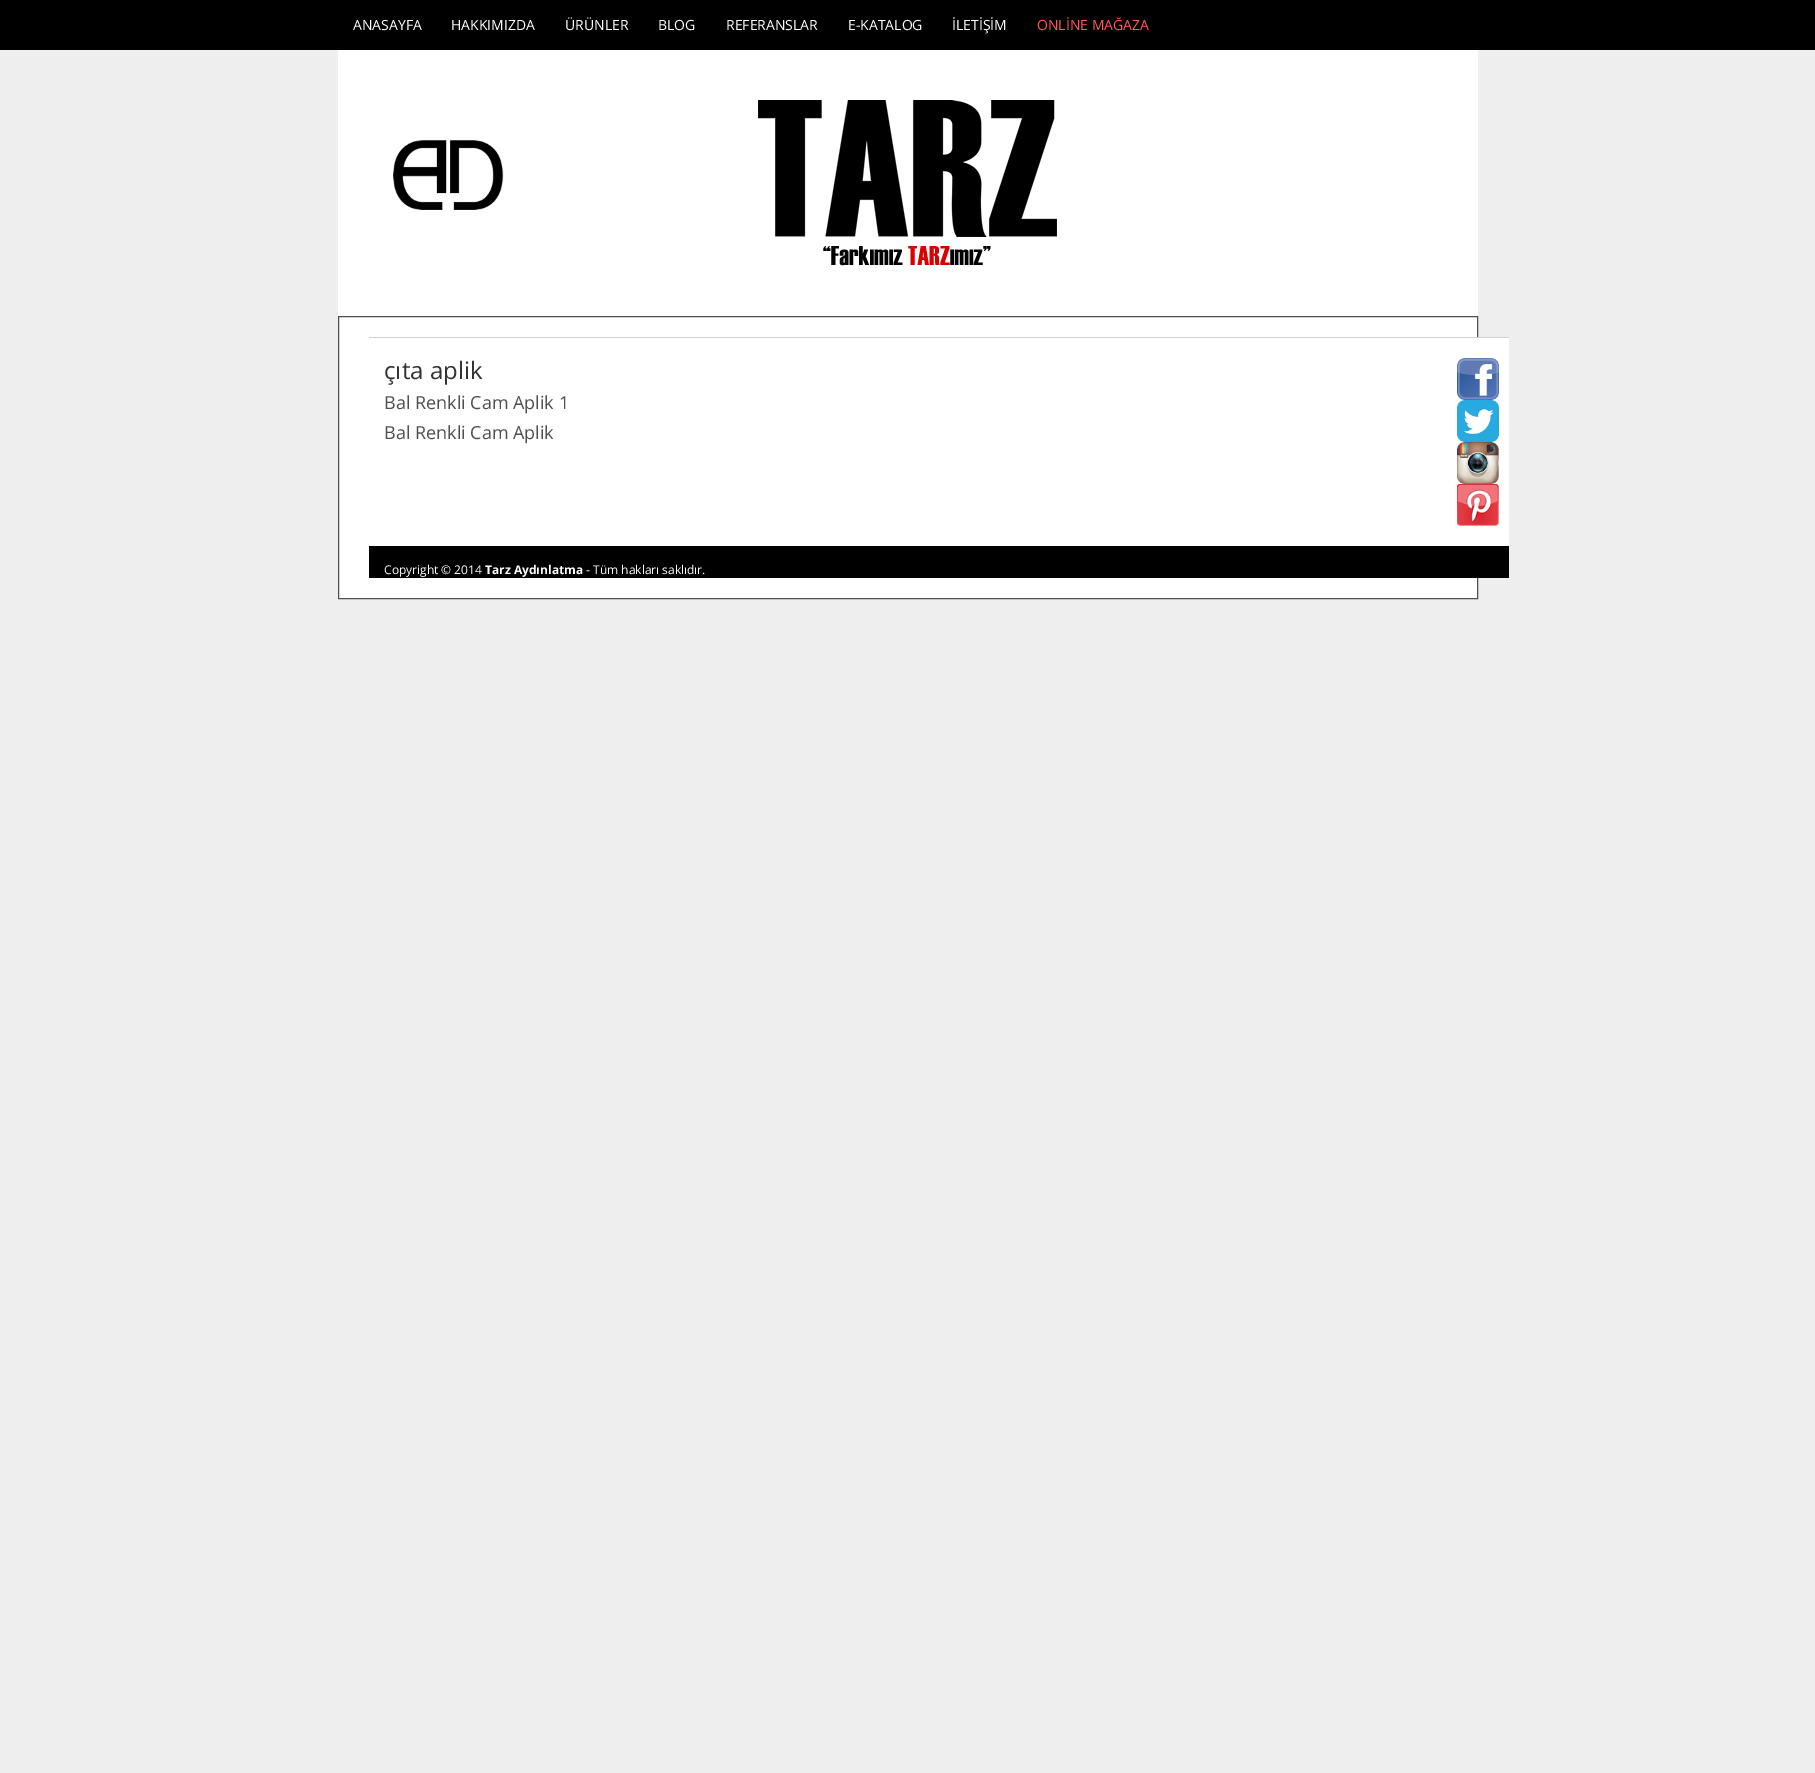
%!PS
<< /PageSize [1815 1773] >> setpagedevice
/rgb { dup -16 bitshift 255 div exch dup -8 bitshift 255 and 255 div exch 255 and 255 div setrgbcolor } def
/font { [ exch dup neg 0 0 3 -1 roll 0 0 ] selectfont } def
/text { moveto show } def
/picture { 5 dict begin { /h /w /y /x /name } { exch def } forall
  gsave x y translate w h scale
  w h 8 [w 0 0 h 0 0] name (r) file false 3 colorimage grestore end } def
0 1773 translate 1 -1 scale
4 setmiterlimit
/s1 { /OpenSans-Regular 14 font 16#FFFFFF rgb } def
/s2 { /OpenSans-Regular 14 font 16#FF5B5B rgb } def
/s3 { /OpenSans-Regular 24 font 16#333333 rgb } def
/s4 { /OpenSans-Regular 18 font 16#4F4F4F rgb } def
/s5 { /OpenSans-Regular 12 font 16#FFFFFF rgb } def
/s6 { /OpenSans-Bold 12 font 16#FFFFFF rgb } def
16#EEEEEE rgb
0 0 1815 1773 rectfill
16#000000 rgb
0 0 1815 50 rectfill
s1
(ANASAYFA) 353 30 text
(HAKKIMIZDA) 451 30 text
(ÜRÜNLER) 565 30 text
(BLOG) 658 30 text
(REFERANSLAR) 726 30 text
(E-KATALOG) 848 30 text
(İLETİŞİM) 952 30 text
s2
(ONLİNE MAĞAZA) 1037 30 text
16#FFFFFF rgb
338 50 1140 266 rectfill
(pic1.raw) 393 140 111 70 picture
(pic2.raw) 758 100 299 166 picture
338.5 316.5 moveto 1477.5 316.5 lineto 1477.5 598.5 lineto 338.5 598.5 lineto closepath gsave fill grestore
16#4F4F4F rgb
stroke
16#FFFFFF rgb
1477 338 32 208 rectfill
16#D0D0D0 rgb
369 337 1140 1 rectfill
(pic3.raw) 1457 358 42 42 picture
(pic4.raw) 1457 400 42 42 picture
(pic5.raw) 1457 442 42 42 picture
(pic6.raw) 1457 484 42 42 picture
s3
(çıta aplik) 384 379 text
s4
(Bal Renkli Cam Aplik 1) 384 409 text
(Bal Renkli Cam Aplik) 384 439 text
16#000000 rgb
369 546 1140 32 rectfill
s5
(Copyright © 2014) 384 574 text
s6
(Tarz Aydınlatma) 485 574 text
s5
(- Tüm hakları saklıdır.) 586 574 text
showpage
